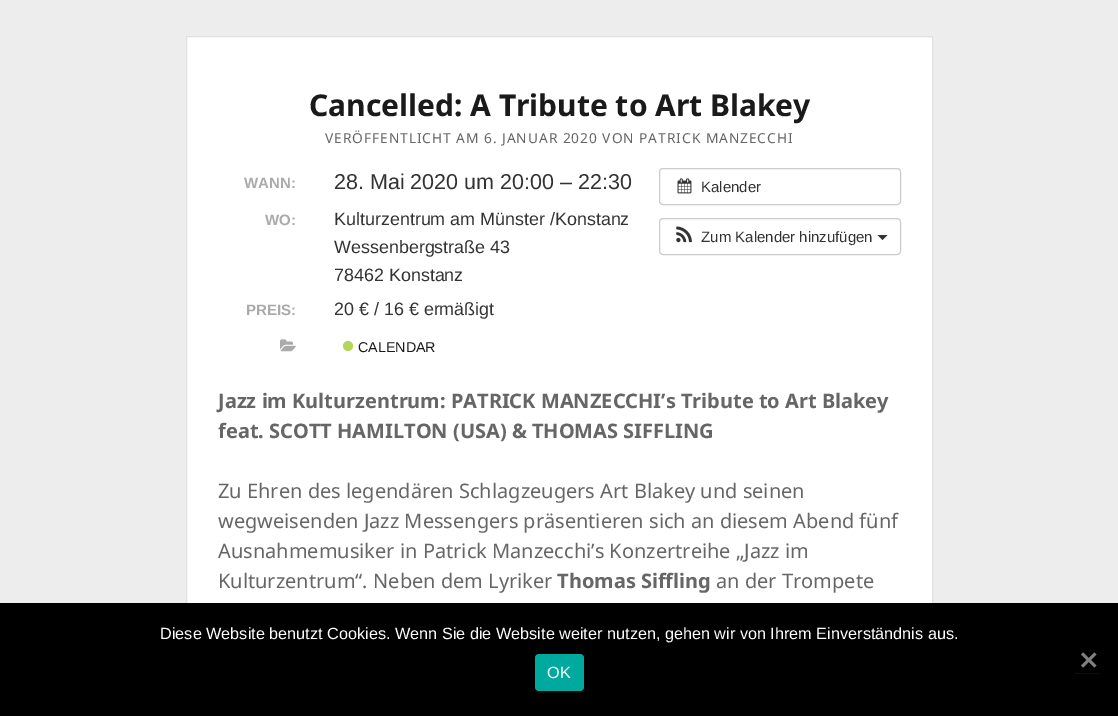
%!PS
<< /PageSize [1118 716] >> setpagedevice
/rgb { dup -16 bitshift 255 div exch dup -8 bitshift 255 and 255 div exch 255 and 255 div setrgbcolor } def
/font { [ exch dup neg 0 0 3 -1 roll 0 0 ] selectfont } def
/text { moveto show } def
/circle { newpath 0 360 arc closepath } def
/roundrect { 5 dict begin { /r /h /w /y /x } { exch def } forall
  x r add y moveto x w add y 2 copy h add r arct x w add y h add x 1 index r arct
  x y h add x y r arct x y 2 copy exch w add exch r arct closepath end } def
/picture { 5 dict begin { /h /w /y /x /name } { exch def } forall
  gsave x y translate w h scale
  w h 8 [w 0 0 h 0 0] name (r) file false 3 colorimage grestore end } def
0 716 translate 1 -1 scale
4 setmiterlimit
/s1 { /NotoSans-Bold 30 font 16#1A1A1A rgb } def
/s2 { /LiberationSans-Bold 15 font 16#AAAAAA rgb } def
/s3 { /LiberationSans-Regular 21.5 font 16#333333 rgb } def
/s4 { /LiberationSans-Regular 17.9 font 16#333333 rgb } def
/s5 { /LiberationSans-Regular 14.25 font 16#1A1A1A rgb } def
/s6 { /LiberationSans-Regular 15 font 16#333333 rgb } def
/s7 { /NotoSans-Bold 20 font 16#666666 rgb } def
/s8 { /NotoSans-Regular 20 font 16#666666 rgb } def
/s9 { /LiberationSans-Regular 16.25 font 16#FFFFFF rgb } def
16#EDEDED rgb
0 0 1118 716 rectfill
16#FFFFFF rgb
187 37 745 566 rectfill
16#E0E0E0 rgb
186.5 36.5 746 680 rectstroke
s1
(Cancelled: A Tribute to Art Blakey) 309 116 text
/NotoSans-Regular 13.75 font
16#666666 rgb
325 143 moveto 0.95 0 (VERÖFFENTLICHT AM 6. JANUAR 2020 VON PATRICK MANZECCHI) ashow
s2
(WANN:) 244 188 text
s3
(28. Mai 2020 um 20:00 – 22:30) 334 189 text
s2
(WO:) 265 225 text
s4
(Kulturzentrum am Münster /Konstanz) 334 225 text
(Wessenbergstraße 43) 334 253 text
(78462 Konstanz) 334 281 text
s2
(PREIS:) 246 315 text
s4
(20 € / 16 € ermäßigt) 334 315 text
(pic1.raw) 280 339 16 13 picture
16#B2D55C rgb
348 346 5 circle fill
s5
(CALENDAR) 358 352 text
16#CCCCCC rgb
659.5 168.5 241 36 3.5 roundrect stroke
(pic2.raw) 677 178 15 16 picture
s6
(Kalender) 701 192 text
16#CCCCCC rgb
659.5 218.5 241 36 3.5 roundrect stroke
(pic3.raw) 676 226 16 17 picture
s6
(Zum Kalender hinzufügen) 701 242 text
877.5 235 moveto 887.5 235 lineto 882.5 240 lineto closepath fill
s7
(Jazz im Kulturzentrum: PATRICK MANZECCHI’s Tribute to Art Blakey) 218 408 text
(feat. SCOTT HAMILTON \(USA\) & THOMAS SIFFLING) 218 438 text
s8
(Zu Ehren des legendären Schlagzeugers Art Blakey und seinen) 218 498 text
(wegweisenden Jazz Messengers präsentieren sich an diesem Abend fünf) 218 528 text
(Ausnahmemusiker in Patrick Manzecchi’s Konzertreihe „Jazz im) 218 558 text
(Kulturzentrum“. Neben dem Lyriker) 218 588 text
s7
(Thomas Siffling) 557 588 text
s8
(an der Trompete) 716 588 text
16#000000 rgb
0 603 1118 113 rectfill
s9
(Diese Website benutzt Cookies. Wenn Sie die Website weiter nutzen, gehen wir von Ihrem Einverständnis aus.) 160 639 text
16#00A99D rgb
535 654 49 37 4 roundrect fill
s9
(OK) 547 678 text
16#0D0D0D rgb
1075 673 25 1 rectfill
16#808080 rgb
1094.5 652.5 moveto 1096.5 654.5 lineto 1083 667.5 lineto 1081 665.5 lineto closepath fill
1081 654.5 moveto 1083 652.5 lineto 1096.5 665.5 lineto 1094.5 667.5 lineto closepath fill
showpage
